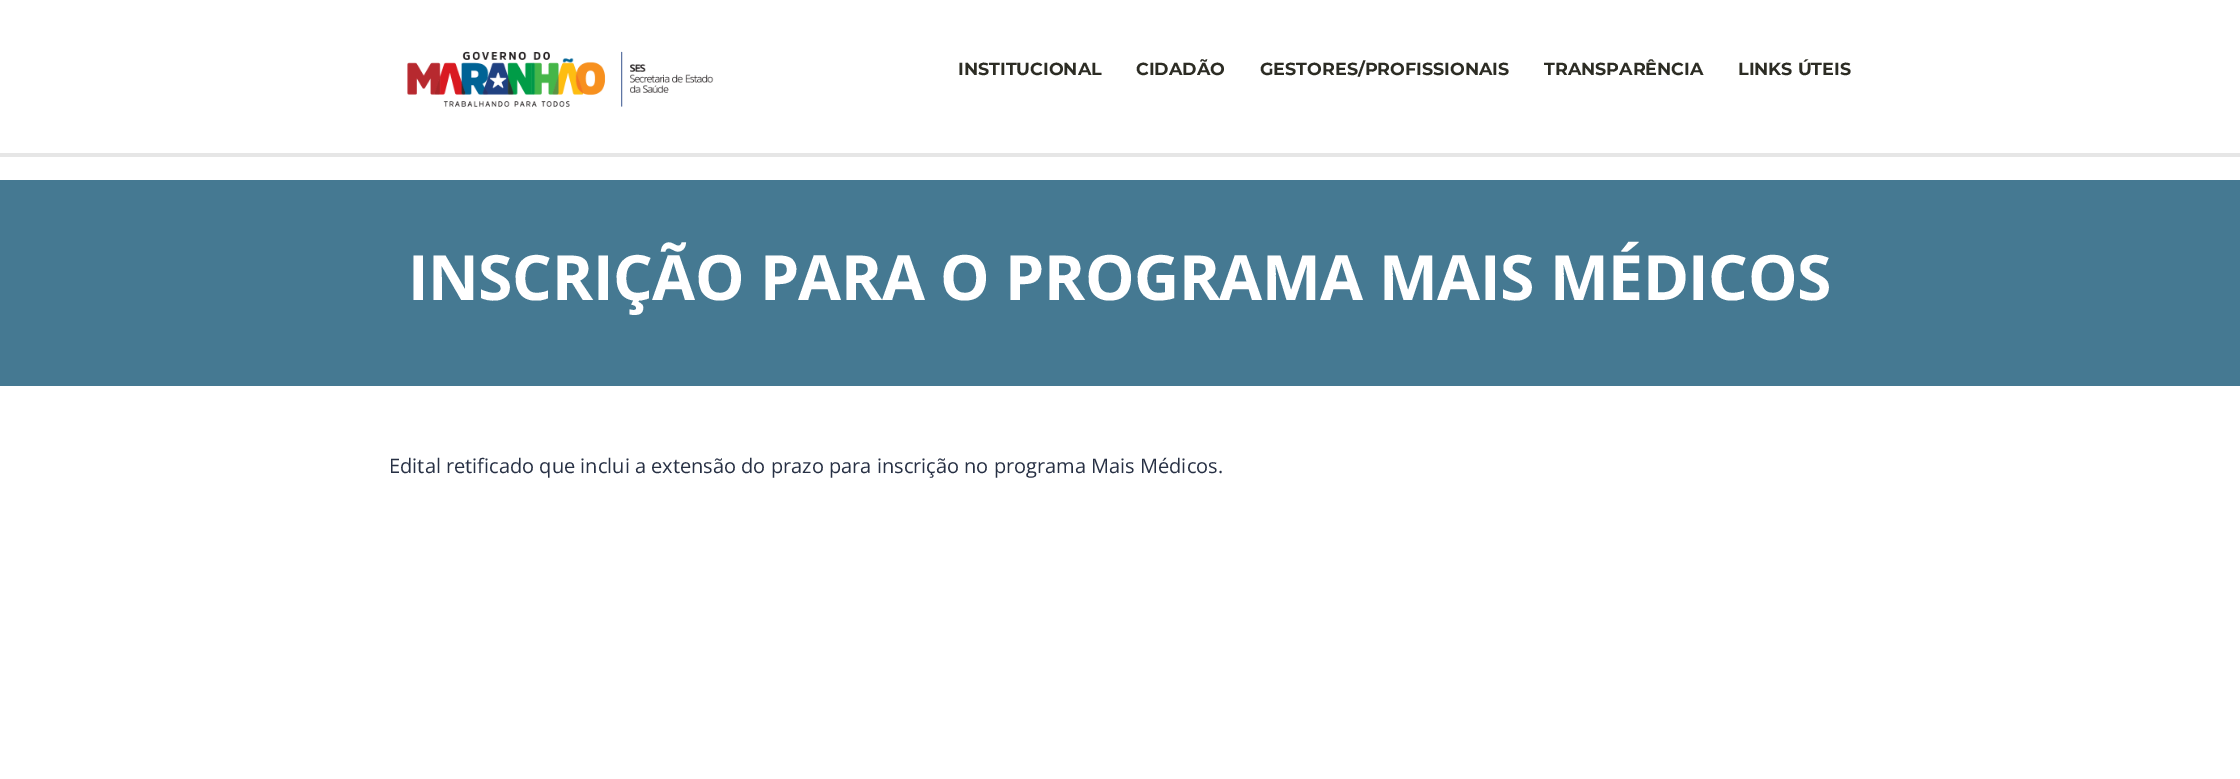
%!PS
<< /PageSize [2240 779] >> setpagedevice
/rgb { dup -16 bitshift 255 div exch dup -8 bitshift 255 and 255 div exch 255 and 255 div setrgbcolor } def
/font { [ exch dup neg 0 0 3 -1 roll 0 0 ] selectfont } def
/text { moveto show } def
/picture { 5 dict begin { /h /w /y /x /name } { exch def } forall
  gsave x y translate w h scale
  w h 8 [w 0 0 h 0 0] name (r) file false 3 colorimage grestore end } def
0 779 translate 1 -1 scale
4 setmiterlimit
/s1 { /Montserrat-Bold 17.5 font 16#2C2C24 rgb } def
/s2 { /OpenSans-Regular 20 font 16#273044 rgb } def
16#FFFFFF rgb
0 0 2240 779 rectfill
(pic1.raw) 407 51 307 56 picture
s1
(INSTITUCIONAL) 958 75 text
(CIDADÃO) 1136 75 text
(GESTORES/PROFISSIONAIS) 1260 75 text
(TRANSPARÊNCIA) 1544 75 text
(LINKS ÚTEIS) 1738 75 text
16#E6E6E6 rgb
0 153 2240 4 rectfill
16#457992 rgb
0 180 2240 206 rectfill
/OpenSans-Bold 62.5 font
16#FFFFFF rgb
408 300 moveto -0.5 0 (INSCRIÇÃO PARA O PROGRAMA MAIS MÉDICOS) ashow
s2
(Edital retificado que inclui a extensão do prazo para inscrição no programa Mais Médicos.) 389 473 text
showpage
